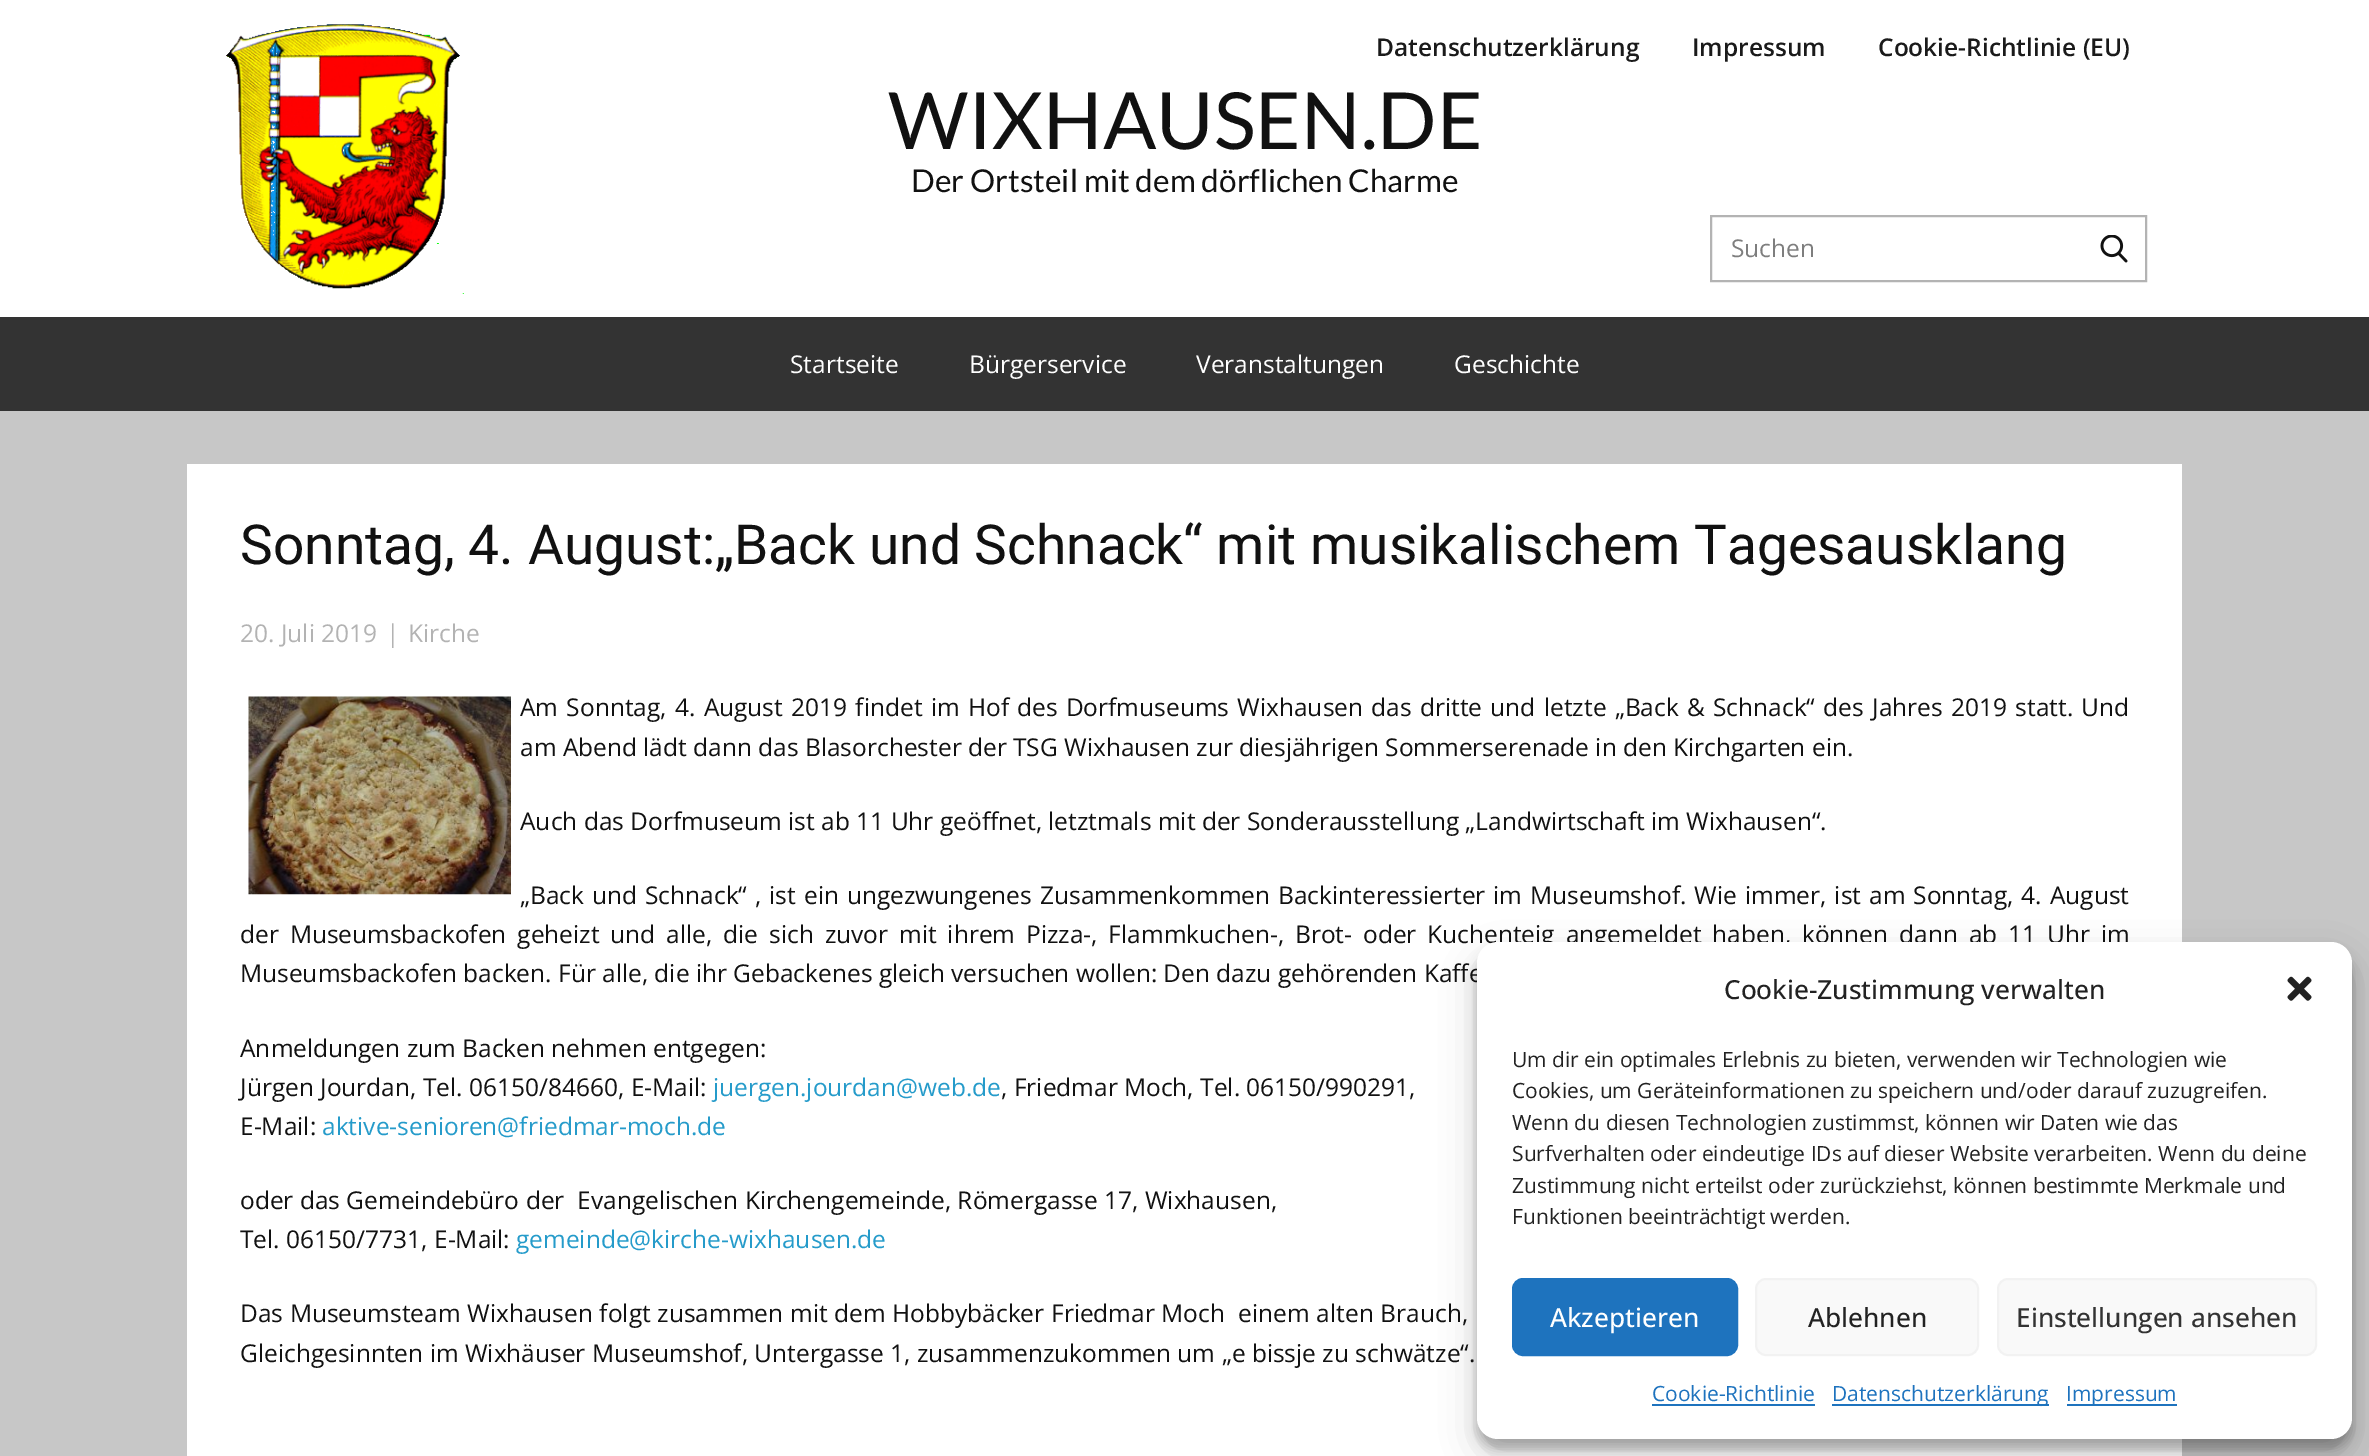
%!PS
<< /PageSize [2369 1456] /PageUsesTransparency true >> setpagedevice
/rgb { dup -16 bitshift 255 div exch dup -8 bitshift 255 and 255 div exch 255 and 255 div setrgbcolor } def
/font { [ exch dup neg 0 0 3 -1 roll 0 0 ] selectfont } def
/text { moveto show } def
/alpha { dup .setfillconstantalpha .setstrokeconstantalpha } def
/roundrect { 5 dict begin { /r /h /w /y /x } { exch def } forall
  x r add y moveto x w add y 2 copy h add r arct x w add y h add x 1 index r arct
  x y h add x y r arct x y 2 copy exch w add exch r arct closepath end } def
/shadow { 12 dict begin { /a /b /q /h /w /y /x } { exch def } forall gsave /was 0 def
  9 -2 -9 { dup b mul 4 div /e exch def 1 sub .425 mul 2.718 exch exp 1 add a .99 .min exch div /now exch def
    1 1 now sub 1 was sub div sub alpha /was now def
    w h .min e 2 mul add 0 gt { x e sub y e sub w e 2 mul add h e 2 mul add
      q e add b .6 mul add w h .min 2 div e add .min 0 .max roundrect fill } if } for grestore end } def
/picture { 5 dict begin { /h /w /y /x /name } { exch def } forall
  gsave x y translate w h scale
  w h 8 [w 0 0 h 0 0] name (r) file false 3 colorimage grestore end } def
0 .pushpdf14devicefilter
0 1456 translate 1 -1 scale
4 setmiterlimit
/s1 { /OpenSans-SemiBold 24.5 font 16#1A1A1A rgb } def
/s2 { /Lato-Regular 78.75 font 16#111111 rgb } def
/s3 { /Lato-Regular 31.5 font 16#111111 rgb } def
/s4 { /OpenSans-Regular 24.5 font 16#7E7E7E rgb } def
/s5 { /OpenSans-Regular 24.5 font 16#FFFFFF rgb } def
/s6 { /Roboto-Regular 55.1 font 16#111111 rgb } def
/s7 { /OpenSans-Regular 24.5 font 16#B3B3B3 rgb } def
/s8 { /OpenSans-Regular 24.5 font 16#111111 rgb } def
/s9 { /OpenSans-Regular 24.5 font 16#259BCA rgb } def
/s10 { /OpenSans-Medium 26.25 font 16#222222 rgb } def
/s11 { /OpenSans-Regular 21 font 16#222222 rgb } def
/s12 { /OpenSans-Medium 26.25 font 16#FFFFFF rgb } def
/s13 { /OpenSans-Medium 26.25 font 16#333333 rgb } def
/s14 { /OpenSans-Regular 21 font 16#1E73BE rgb } def
16#C7C7C7 rgb
0 0 2369 1456 rectfill
16#FFFFFF rgb
0 0 2369 317 rectfill
(pic1.raw) 226 24 238 270 picture
s1
(Datenschutzerklärung) 1376 56 text
(Impressum) 1692 56 text
(Cookie-Richtlinie \(EU\)) 1878 56 text
s2
(WIXHAUSEN.DE) 888 149 text
s3
(Der Ortsteil mit dem dörflichen Charme) 911 192 text
16#B3B3B3 rgb
2 setlinewidth
1711 216 435 65 rectstroke
s4
(Suchen) 1731 257 text
(pic2.raw) 2100 235 28 28 picture
16#333333 rgb
0 317 2369 94 rectfill
s5
(Startseite) 790 373 text
(Bürgerservice) 969 373 text
(Veranstaltungen) 1196 373 text
(Geschichte) 1454 373 text
187 464 1995 992 rectfill
s6
(Sonntag, 4. August:„Back und Schnack“ mit musikalischem Tagesausklang) 240 564 text
s7
(20. Juli 2019) 240 642 text
(|) 386 642 text
(Kirche) 408 642 text
(pic3.raw) 248 696 263 199 picture
16#111111 rgb
520 716 moveto 1.9 0 32 (Am Sonntag, 4. August 2019 findet im Hof des Dorfmuseums Wixhausen das dritte und letzte „Back & Schnack“ des Jahres 2019 statt. Und) widthshow
(am Abend lädt dann das Blasorchester der TSG Wixhausen zur diesjährigen Sommerserenade in den Kirchgarten ein.) 520 756 text
(Auch das Dorfmuseum ist ab 11 Uhr geöffnet, letztmals mit der Sonderausstellung „Landwirtschaft im Wixhausen“.) 520 830 text
520 904 moveto 1.6 0 32 („Back und Schnack“ , ist ein ungezwungenes Zusammenkommen Backinteressierter im Museumshof. Wie immer, ist am Sonntag, 4. August) widthshow
240 943 moveto 4.5 0 32 (der Museumsbackofen geheizt und alle, die sich zuvor mit ihrem Pizza-, Flammkuchen-, Brot- oder Kuchenteig angemeldet haben, können dann ab 11 Uhr im) widthshow
(Museumsbackofen backen. Für alle, die ihr Gebackenes gleich versuchen wollen: Den dazu gehörenden Kaffe) 240 982 text
(Anmeldungen zum Backen nehmen entgegen:) 240 1057 text
(Jürgen Jourdan, Tel. 06150/84660, E-Mail:) 240 1096 text
s9
(juergen.jourdan@web.de) 713 1096 text
s8
(, Friedmar Moch, Tel. 06150/990291,) 1001 1096 text
(E-Mail:) 240 1135 text
s9
(aktive-senioren@friedmar-moch.de) 322 1135 text
s8
(oder das Gemeindebüro der  Evangelischen Kirchengemeinde, Römergasse 17, Wixhausen,) 240 1209 text
(Tel. 06150/7731, E-Mail:) 240 1248 text
s9
(gemeinde@kirche-wixhausen.de) 516 1248 text
16#111111 rgb
240 1322 moveto 0.3 0 32 (Das Museumsteam Wixhausen folgt zusammen mit dem Hobbybäcker Friedmar Moch  einem alten Brauch,) widthshow
(Gleichgesinnten im Wixhäuser Museumshof, Untergasse 1, zusammenzukommen um „e bissje zu schwätze“.) 240 1362 text
16#000000 rgb
1477 952 875 497 21 5 0.23 shadow
1477 959 875 497 21 17.5 0.19 shadow
16#FFFFFF rgb
1477 942 875 497 21 roundrect fill
s10
(Cookie-Zustimmung verwalten) 1724 999 text
(pic4.raw) 2287 976 25 25 picture
s11
(Um dir ein optimales Erlebnis zu bieten, verwenden wir Technologien wie) 1512 1067 text
(Cookies, um Geräteinformationen zu speichern und/oder darauf zuzugreifen.) 1512 1098 text
(Wenn du diesen Technologien zustimmst, können wir Daten wie das) 1512 1130 text
(Surfverhalten oder eindeutige IDs auf dieser Website verarbeiten. Wenn du deine) 1512 1161 text
(Zustimmung nicht erteilst oder zurückziehst, können bestimmte Merkmale und) 1512 1193 text
(Funktionen beeinträchtigt werden.) 1512 1224 text
16#1E73BE rgb
1513 1279 224 76 10 roundrect gsave fill grestore
stroke
s12
(Akzeptieren) 1550 1327 text
16#F9F9F9 rgb
1756 1279 222 76 10 roundrect gsave fill grestore
16#F2F2F2 rgb
stroke
s10
(Ablehnen) 1808 1327 text
16#F9F9F9 rgb
1998 1279 318 76 10 roundrect gsave fill grestore
16#F2F2F2 rgb
stroke
s13
(Einstellungen ansehen) 2016 1327 text
s14
(Cookie-Richtlinie) 1652 1401 text
1652 1404 163 2 rectfill
1832 1404 217 2 rectfill
(Datenschutzerklärung) 1832 1401 text
2067 1404 110 2 rectfill
(Impressum) 2066 1401 text
.poppdf14devicefilter showpage
